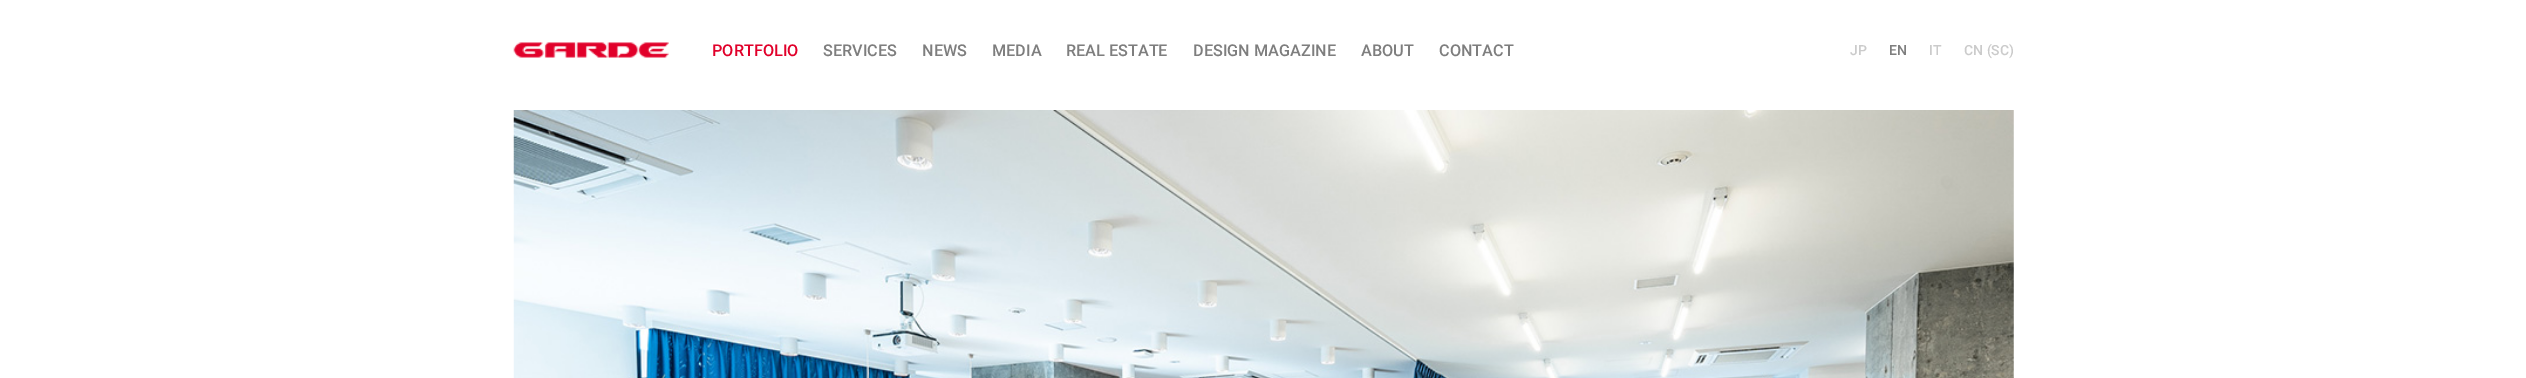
%!PS
<< /PageSize [2526 378] >> setpagedevice
/rgb { dup -16 bitshift 255 div exch dup -8 bitshift 255 and 255 div exch 255 and 255 div setrgbcolor } def
/font { [ exch dup neg 0 0 3 -1 roll 0 0 ] selectfont } def
/text { moveto show } def
/picture { 5 dict begin { /h /w /y /x /name } { exch def } forall
  gsave x y translate w h scale
  w h 8 [w 0 0 h 0 0] name (r) file false 3 colorimage grestore end } def
0 378 translate 1 -1 scale
4 setmiterlimit
/s1 { /Roboto-Medium 16.25 font 16#E1002A rgb } def
/s2 { /Roboto-Medium 16.25 font 16#7E7E7E rgb } def
/s3 { /Roboto-Medium 14 font 16#CBCBCB rgb } def
/s4 { /Roboto-Medium 14 font 16#7E7E7E rgb } def
16#FFFFFF rgb
0 0 2526 378 rectfill
(pic1.raw) 513 42 156 16 picture
s1
(PORTFOLIO) 712 56 text
s2
(SERVICES) 823 56 text
(NEWS) 922 56 text
(MEDIA) 992 56 text
(REAL ESTATE) 1066 56 text
(DESIGN MAGAZINE) 1193 56 text
(ABOUT) 1361 56 text
(CONTACT) 1439 56 text
s3
(JP) 1850 55 text
s4
(EN) 1889 55 text
s3
(IT) 1929 55 text
(CN \(SC\)) 1964 55 text
(pic2.raw) 513 110 1501 268 picture
showpage
